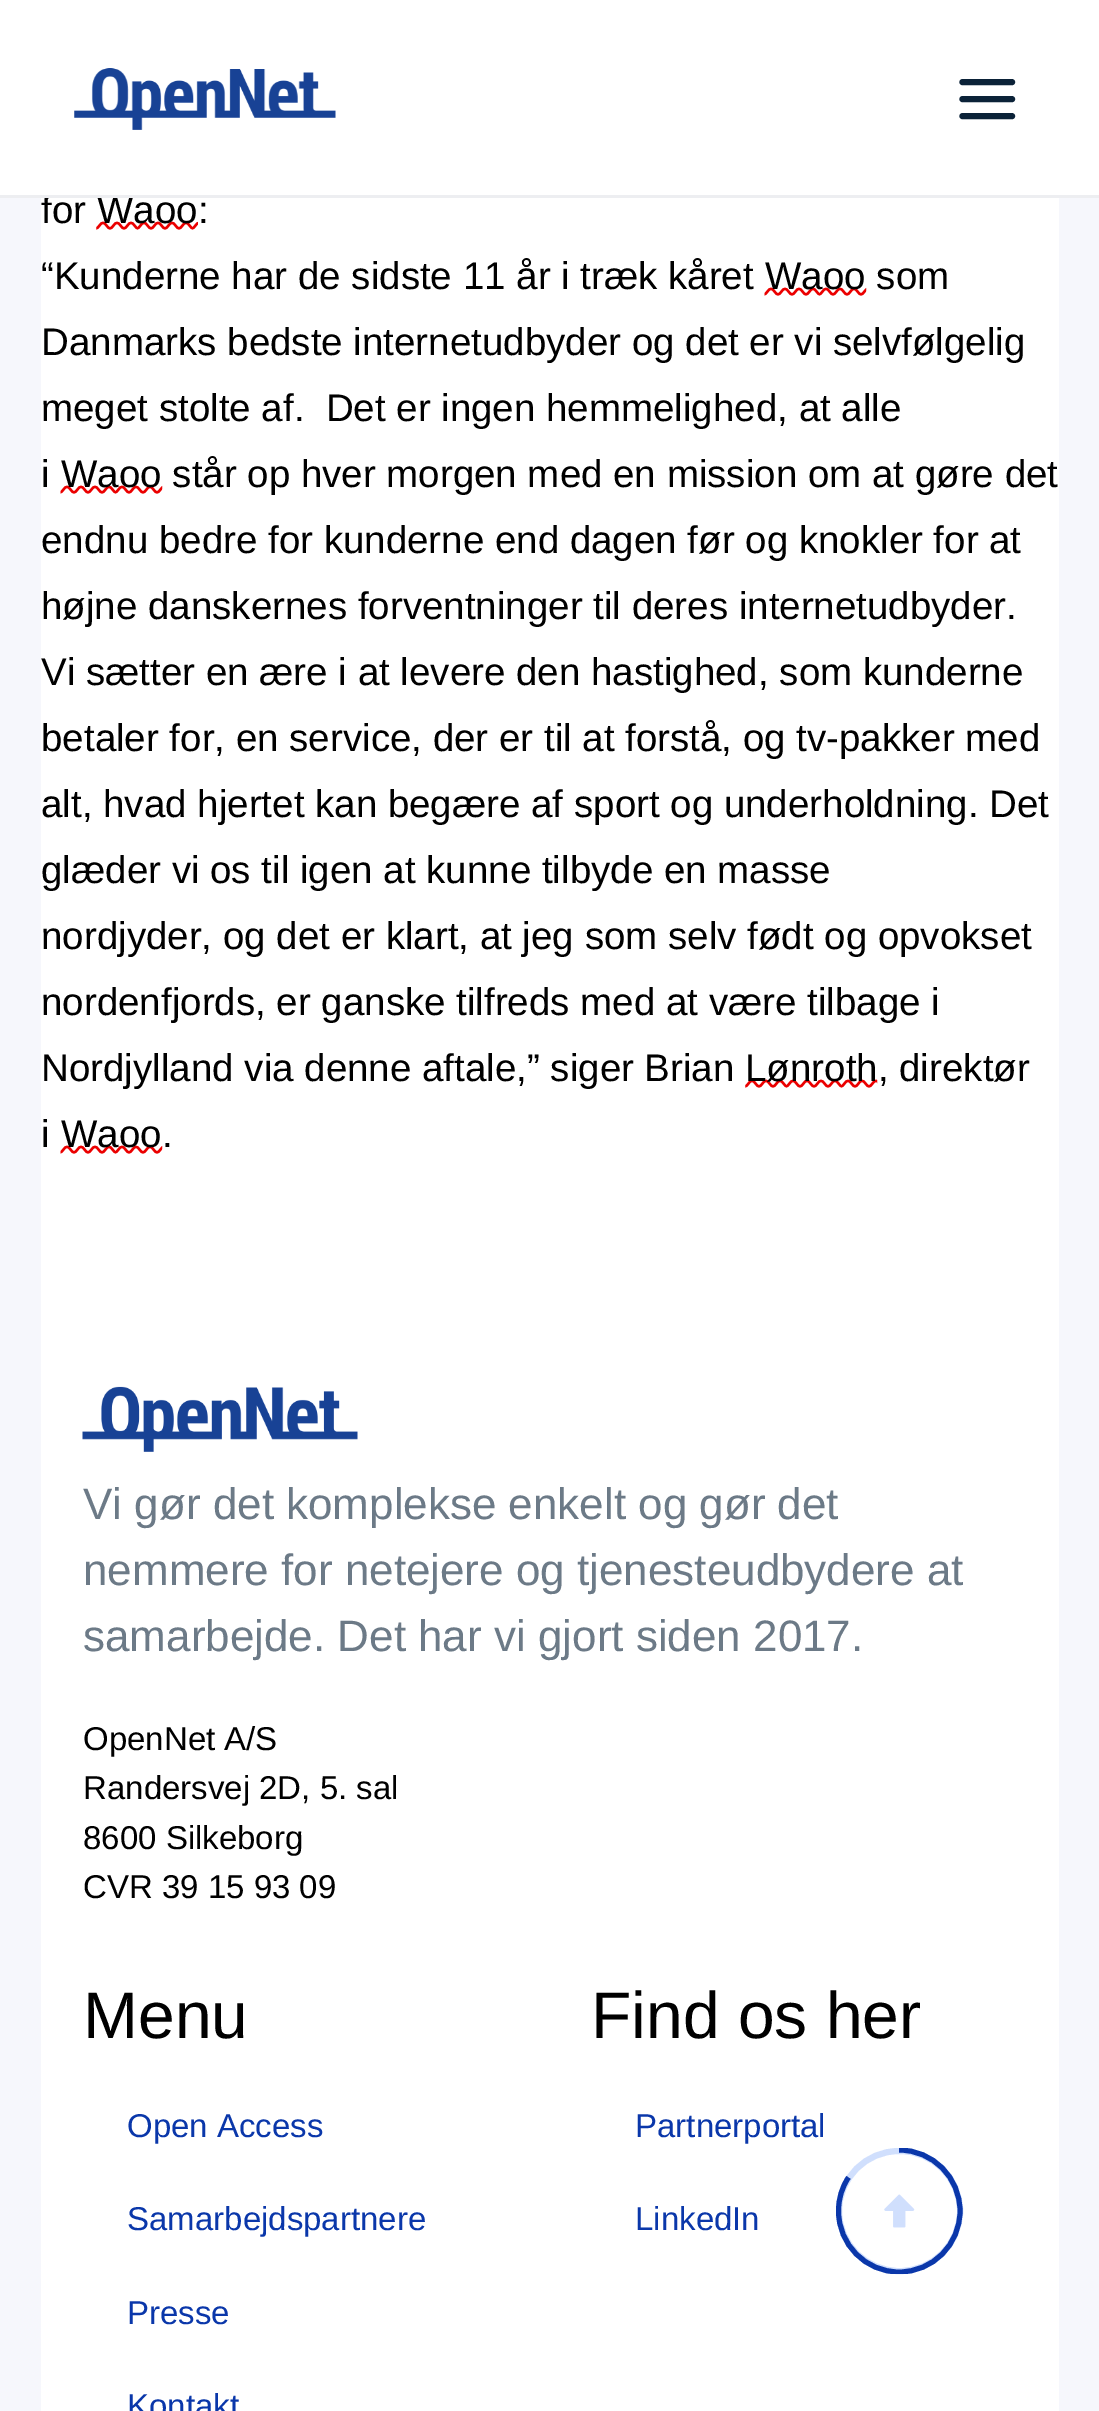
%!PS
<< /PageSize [1099 2411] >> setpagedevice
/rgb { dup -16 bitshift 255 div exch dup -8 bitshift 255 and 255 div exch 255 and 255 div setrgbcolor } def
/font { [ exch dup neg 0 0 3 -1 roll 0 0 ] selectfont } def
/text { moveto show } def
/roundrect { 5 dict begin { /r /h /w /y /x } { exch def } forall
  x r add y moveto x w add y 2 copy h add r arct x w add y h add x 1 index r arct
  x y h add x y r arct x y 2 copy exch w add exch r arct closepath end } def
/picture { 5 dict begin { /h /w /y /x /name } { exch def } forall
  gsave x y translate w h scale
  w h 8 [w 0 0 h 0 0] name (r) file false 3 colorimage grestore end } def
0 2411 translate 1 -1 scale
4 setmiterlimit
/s1 { /LiberationSans-Regular 38.5 font 16#000000 rgb } def
/s2 { /LiberationSans-Regular 44 font 16#6C7A87 rgb } def
/s3 { /LiberationSans-Regular 33 font 16#000000 rgb } def
/s4 { /LiberationSans-Regular 66 font 16#000000 rgb } def
/s5 { /LiberationSans-Regular 33 font 16#0A37AA rgb } def
16#F6F7FC rgb
0 0 1099 2411 rectfill
16#FFFFFF rgb
0 0 1099 195 rectfill
41 198 1018 2213 rectfill
s1
(for) 41 223 text
(pic2.raw) 96 221 102 9 picture
(Waoo:) 97 223 text
16#EDEEF1 rgb
0 195 1099 3 rectfill
(pic1.raw) 74 68 262 62 picture
16#0B2238 rgb
6.1 setlinewidth
1 setlinecap
1 setlinejoin
962.5 82 moveto 1012 82 lineto 962.5 99 moveto 1012 99 lineto 1012 116 moveto 962.5 116 lineto stroke
s1
(“Kunderne har de sidste 11 år i træk kåret) 41 289 text
(pic3.raw) 764 287 103 9 picture
(Waoo som) 765 289 text
(Danmarks bedste internetudbyder og det er vi selvfølgelig) 41 355 text
(meget stolte af.  Det er ingen hemmelighed, at alle) 41 421 text
(i) 41 487 text
(pic3.raw) 60 485 103 9 picture
(Waoo står op hver morgen med en mission om at gøre det) 61 487 text
(endnu bedre for kunderne end dagen før og knokler for at) 41 553 text
(højne danskernes forventninger til deres internetudbyder.) 41 619 text
(Vi sætter en ære i at levere den hastighed, som kunderne) 41 685 text
(betaler for, en service, der er til at forstå, og tv-pakker med) 41 751 text
(alt, hvad hjertet kan begære af sport og underholdning. Det) 41 817 text
(glæder vi os til igen at kunne tilbyde en masse) 41 883 text
(nordjyder, og det er klart, at jeg som selv født og opvokset) 41 949 text
(nordenfjords, er ganske tilfreds med at være tilbage i) 41 1015 text
(Nordjylland via denne aftale,” siger Brian) 41 1081 text
(pic4.raw) 745 1079 133 9 picture
(Lønroth, direktør) 745 1081 text
(i) 41 1147 text
(pic3.raw) 60 1145 103 9 picture
(Waoo.) 61 1147 text
(pic5.raw) 82 1386 276 66 picture
s2
(Vi gør det komplekse enkelt og gør det) 83 1519 text
(nemmere for netejere og tjenesteudbydere at) 83 1585 text
(samarbejde. Det har vi gjort siden 2017.) 83 1651 text
s3
(OpenNet A/S) 83 1750 text
(Randersvej 2D, 5. sal) 83 1799 text
(8600 Silkeborg) 83 1849 text
(CVR 39 15 93 09) 83 1898 text
s4
(Menu) 83 2038 text
s5
(Open Access) 127 2137 text
(Samarbejdspartnere) 127 2230 text
(Presse) 127 2324 text
(Kontakt) 127 2417 text
s4
(Find os her) 591 2038 text
s5
(Partnerportal) 635 2137 text
(LinkedIn) 635 2230 text
16#D0DFFD rgb
6 setlinewidth
0 setlinecap
0 setlinejoin
839 2151 121 120 60 roundrect stroke
gsave
836 2148 127 126 rectclip
16#0A37AA rgb
5 setlinewidth
899 2150 moveto 933 2150 960 2177.5 960 2211 curveto 960 2244.5 933 2272 899 2272 curveto 865.5 2272 838.5 2244.5 838.5 2211 curveto 838.5 2198.5 842 2187 848.5 2177.5 curveto stroke
grestore
(pic6.raw) 884 2194 31 34 picture
showpage
